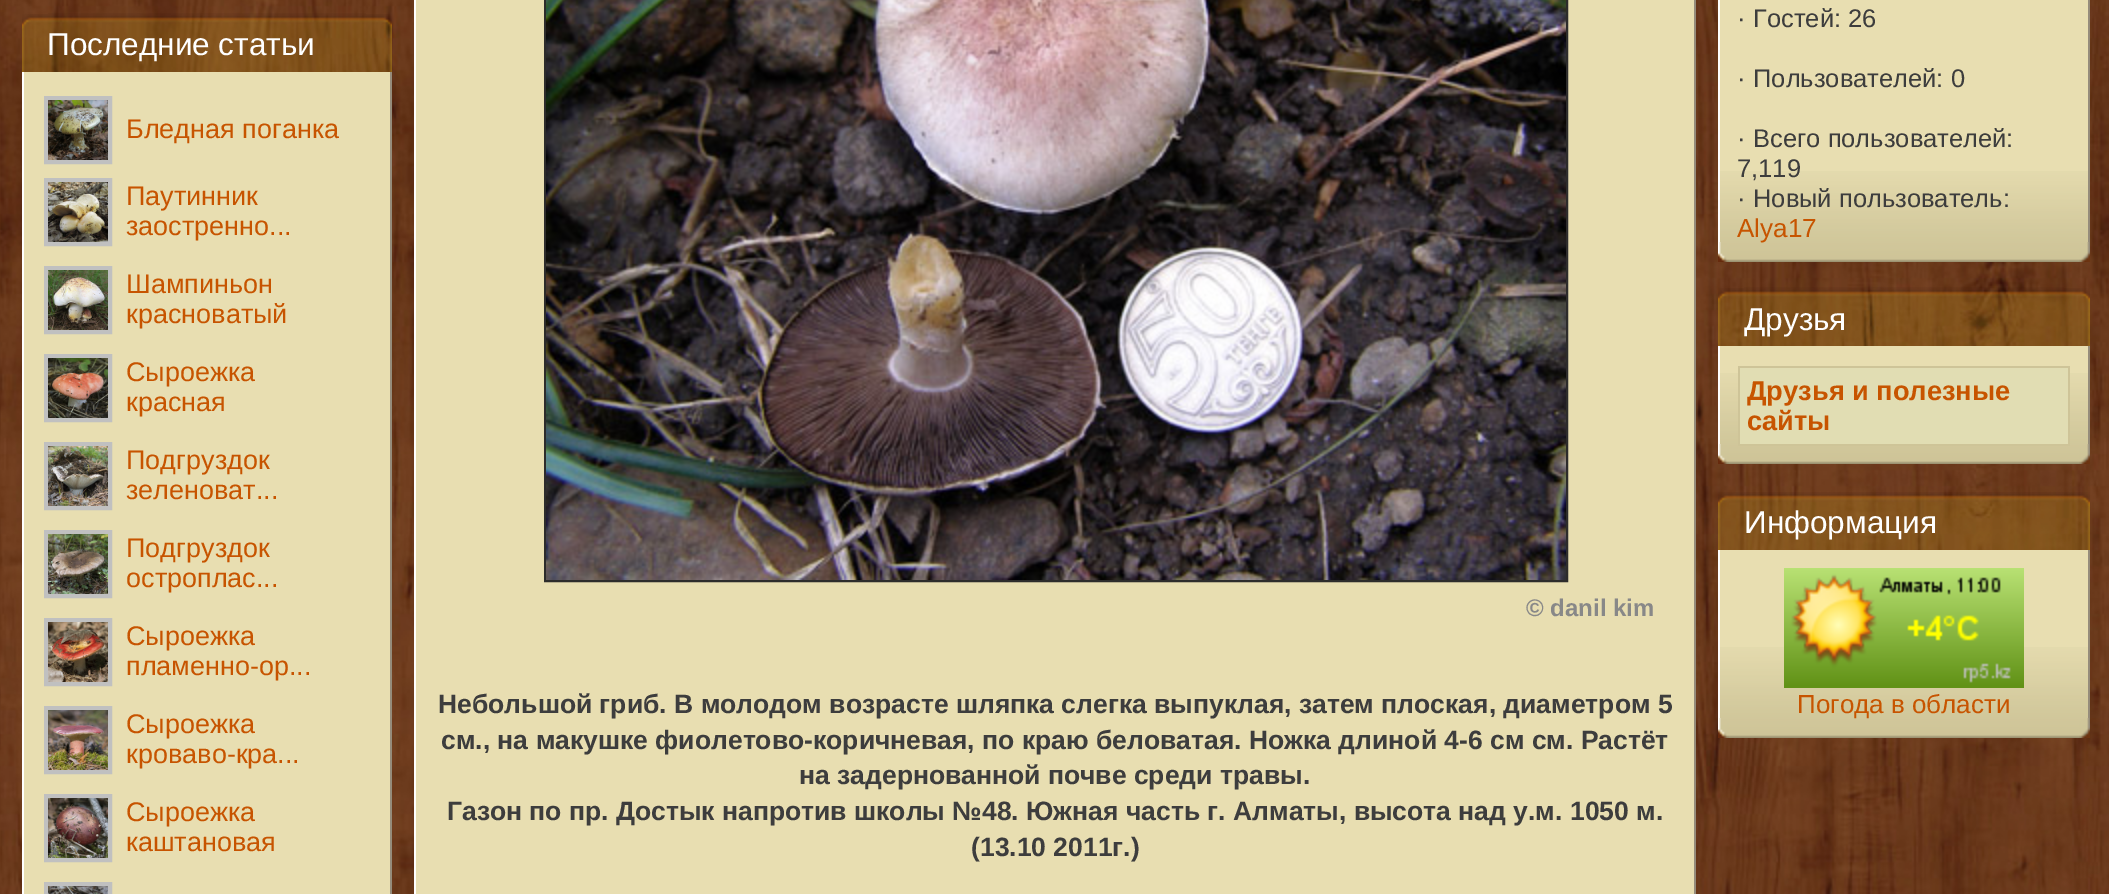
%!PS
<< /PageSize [2109 894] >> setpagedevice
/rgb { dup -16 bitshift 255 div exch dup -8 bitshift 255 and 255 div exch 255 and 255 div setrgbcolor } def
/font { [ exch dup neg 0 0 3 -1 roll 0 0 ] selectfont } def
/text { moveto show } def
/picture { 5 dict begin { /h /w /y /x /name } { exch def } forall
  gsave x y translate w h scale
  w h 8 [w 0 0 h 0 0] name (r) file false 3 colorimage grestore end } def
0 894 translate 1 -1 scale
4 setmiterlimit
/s1 { /LiberationSans-Regular 31.5 font 16#FFFFFF rgb } def
/s2 { /LiberationSans-Regular 27 font 16#C75400 rgb } def
/s3 { /LiberationSans-Bold 24 font 16#888888 rgb } def
/s4 { /LiberationSans-Bold 26.5 font 16#3D3D3D rgb } def
/s5 { /LiberationSans-Regular 26 font 16#3D3D3D rgb } def
/s6 { /LiberationSans-Regular 25.5 font 16#3D3D3D rgb } def
/s7 { /LiberationSans-Regular 26 font 16#C75400 rgb } def
/s8 { /LiberationSans-Bold 27.25 font 16#C75400 rgb } def
16#FFFFFF rgb
0 0 2109 894 rectfill
(pic1.raw) 0 0 2109 894 picture
(pic2.raw) 22 14 26 58 picture
(pic3.raw) 48 13 318 59 picture
s1
(Последние статьи) 47 55 text
(pic4.raw) 366 14 26 58 picture
16#E8DEB1 rgb
24 72 366 822 rectfill
16#958C7B rgb
390 72 2 822 rectfill
16#FFFFFF rgb
22 72 2 822 rectfill
16#C0C0C0 rgb
4 setlinewidth
46 98 64 64 rectstroke
(pic5.raw) 48 100 60 60 picture
s2
(Бледная поганка) 126 138 text
16#C0C0C0 rgb
46 180 64 64 rectstroke
(pic6.raw) 48 182 60 60 picture
s2
(Паутинник) 126 205 text
(заостренно...) 126 235 text
16#C0C0C0 rgb
46 268 64 64 rectstroke
(pic7.raw) 48 270 60 60 picture
s2
(Шампиньон) 126 293 text
(красноватый) 126 323 text
16#C0C0C0 rgb
46 356 64 64 rectstroke
(pic8.raw) 48 358 60 60 picture
s2
(Сыроежка) 126 381 text
(красная) 126 411 text
16#C0C0C0 rgb
46 444 64 64 rectstroke
(pic9.raw) 48 446 60 60 picture
s2
(Подгруздок) 126 469 text
(зеленоват...) 126 499 text
16#C0C0C0 rgb
46 532 64 64 rectstroke
(pic10.raw) 48 534 60 60 picture
s2
(Подгруздок) 126 557 text
(остроплас...) 126 587 text
16#C0C0C0 rgb
46 620 64 64 rectstroke
(pic11.raw) 48 622 60 60 picture
s2
(Сыроежка) 126 645 text
(пламенно-ор...) 126 675 text
16#C0C0C0 rgb
46 708 64 64 rectstroke
(pic12.raw) 48 710 60 60 picture
s2
(Сыроежка) 126 733 text
(кроваво-кра...) 126 763 text
16#C0C0C0 rgb
46 796 64 64 rectstroke
(pic13.raw) 48 798 60 60 picture
s2
(Сыроежка) 126 821 text
(каштановая) 126 851 text
16#C0C0C0 rgb
46 884 64 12 rectstroke
(pic14.raw) 48 886 60 8 picture
16#E8DEB1 rgb
416 0 1278 894 rectfill
16#958C7B rgb
1694 0 2 894 rectfill
16#FFFFFF rgb
414 0 2 894 rectfill
16#2D2C2B rgb
2 setlinewidth
545 -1 1022 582 rectstroke
(pic15.raw) 546 0 1020 580 picture
s3
(© danil kim) 1526 616 text
s4
(Небольшой гриб. В молодом возрасте шляпка слегка выпуклая, затем плоская, диаметром 5) 438 713 text
(см., на макушке фиолетово-коричневая, по краю беловатая. Ножка длиной 4-6 см см. Растёт) 441 749 text
(на задернованной почве среди травы.) 799 784 text
(Газон по пр. Достык напротив школы №48. Южная часть г. Алматы, высота над у.м. 1050 м.) 447 820 text
(\(13.10 2011г.\)) 971 856 text
16#E8DEB1 rgb
1720 0 368 262 rectfill
(pic16.raw) 1720 171 368 91 picture
16#958C7B rgb
2088 0 2 242 rectfill
16#FFFFFF rgb
1718 0 2 242 rectfill
(pic17.raw) 2079 242 11 20 picture
(pic18.raw) 1718 242 11 20 picture
s5
(·) 1737 27 text
s6
(Гостей: 26) 1753 27 text
s5
(·) 1737 87 text
s6
(Пользователей: 0) 1753 87 text
s5
(·) 1737 147 text
s6
(Всего пользователей:) 1753 147 text
(7,119) 1737 177 text
s5
(·) 1737 207 text
s6
(Новый пользователь:) 1753 207 text
s7
(Alya17) 1737 237 text
(pic19.raw) 1718 288 26 58 picture
(pic20.raw) 1744 287 320 59 picture
s1
(Друзья) 1744 330 text
(pic21.raw) 2064 288 26 58 picture
16#E8DEB1 rgb
1720 346 368 118 rectfill
(pic16.raw) 1720 373 368 91 picture
16#958C7B rgb
2088 346 2 98 rectfill
16#FFFFFF rgb
1718 346 2 98 rectfill
(pic17.raw) 2079 444 11 20 picture
(pic18.raw) 1718 444 11 20 picture
16#CEC498 rgb
1738 366 332 80 rectfill
16#E1DDB3 rgb
1740 368 328 76 rectfill
s8
(Друзья и полезные) 1747 400 text
(сайты) 1747 430 text
(pic22.raw) 1718 492 26 58 picture
(pic23.raw) 1744 492 320 58 picture
s1
(Информация) 1744 533 text
(pic24.raw) 2064 492 26 58 picture
16#E8DEB1 rgb
1720 550 368 188 rectfill
(pic16.raw) 1720 647 368 91 picture
16#958C7B rgb
2088 550 2 168 rectfill
16#FFFFFF rgb
1718 550 2 168 rectfill
(pic17.raw) 2079 718 11 20 picture
(pic18.raw) 1718 718 11 20 picture
(pic25.raw) 1784 568 240 120 picture
s7
(Погода в области) 1797 713 text
showpage
